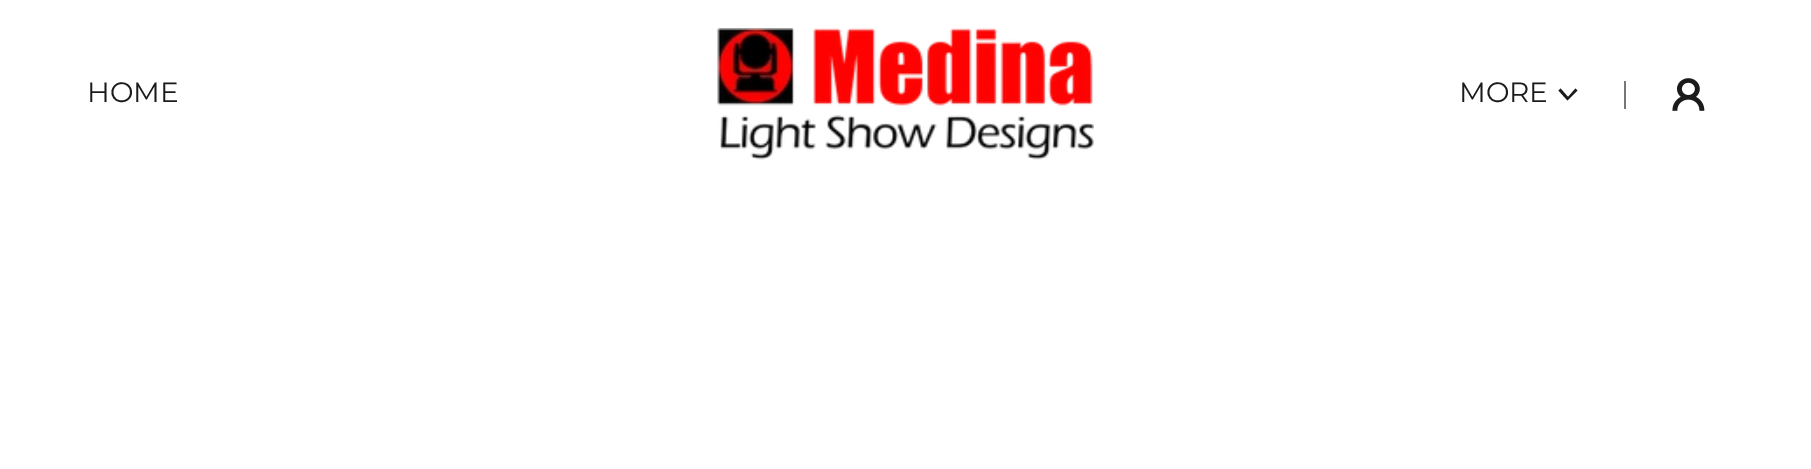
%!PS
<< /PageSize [1811 469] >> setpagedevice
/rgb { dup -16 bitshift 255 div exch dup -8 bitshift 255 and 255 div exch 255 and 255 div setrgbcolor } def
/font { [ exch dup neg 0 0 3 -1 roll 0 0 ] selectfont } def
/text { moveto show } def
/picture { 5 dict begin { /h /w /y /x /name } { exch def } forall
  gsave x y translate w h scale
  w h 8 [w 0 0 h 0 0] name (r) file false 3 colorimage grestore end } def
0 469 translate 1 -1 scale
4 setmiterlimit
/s1 { /Montserrat-Regular 28 font 16#1B1B1B rgb } def
16#FFFFFF rgb
0 0 1811 469 rectfill
s1
(HOME) 87 102 text
(pic1.raw) 717 28 377 132 picture
(MORE) 1459 102 text
1575.5 88.5 moveto 1568 97 lineto 1560.5 88.5 lineto 1558.5 90.5 lineto 1567.5 100.5 lineto 1577.5 90.5 lineto closepath eofill
16#777777 rgb
1624 81 2 28 rectfill
(pic2.raw) 1672 78 33 33 picture
showpage
